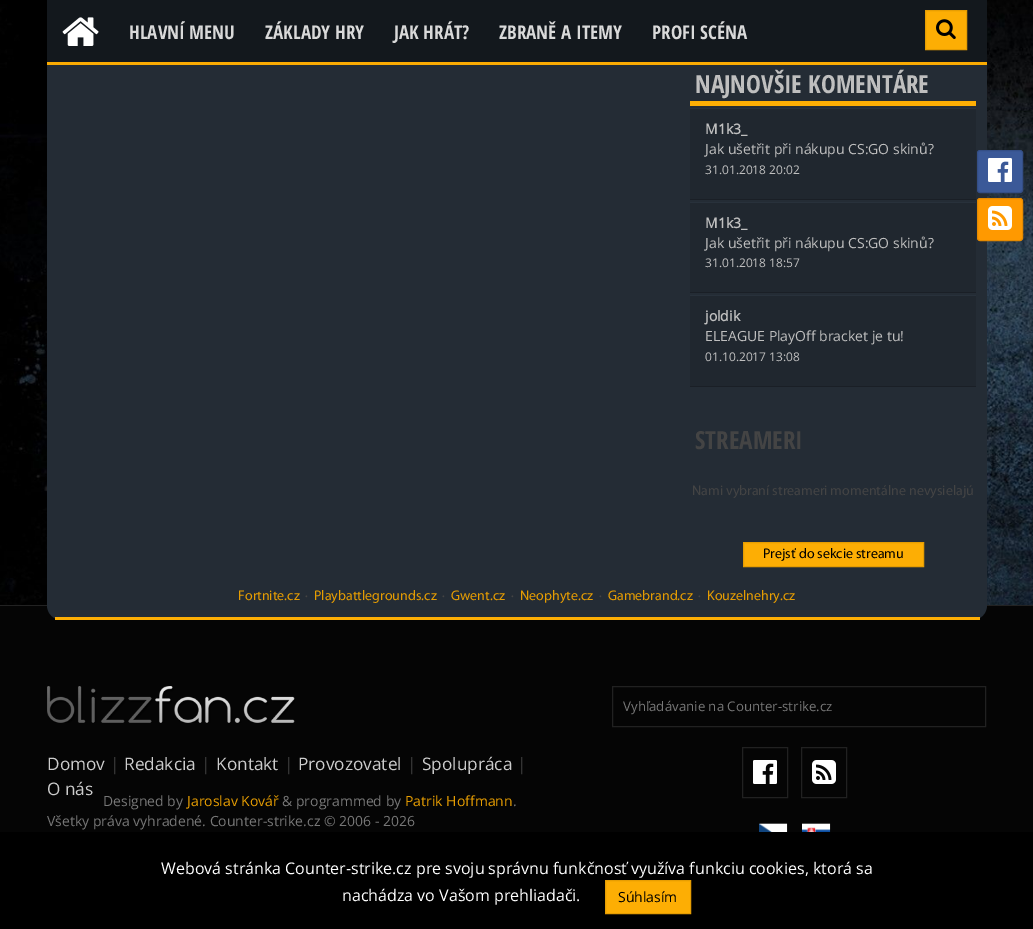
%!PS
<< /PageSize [1033 929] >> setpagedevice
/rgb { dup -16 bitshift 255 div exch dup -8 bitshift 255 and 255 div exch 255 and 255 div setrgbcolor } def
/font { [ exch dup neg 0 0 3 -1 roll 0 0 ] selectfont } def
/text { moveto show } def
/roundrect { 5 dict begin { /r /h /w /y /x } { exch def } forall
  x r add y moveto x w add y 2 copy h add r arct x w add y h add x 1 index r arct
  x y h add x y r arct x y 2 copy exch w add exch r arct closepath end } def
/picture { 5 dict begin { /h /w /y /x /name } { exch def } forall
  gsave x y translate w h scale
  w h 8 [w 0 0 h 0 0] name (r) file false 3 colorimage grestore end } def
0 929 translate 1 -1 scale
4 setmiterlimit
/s1 { /OpenSansCondensed-Bold 19 font 16#D9D9D9 rgb } def
/s2 { /OpenSansCondensed-Bold 25 font 16#BFBFBF rgb } def
/s3 { /OpenSans-Bold 14 font 16#BFBFBF rgb } def
/s4 { /OpenSans-Regular 14 font 16#BFBFBF rgb } def
/s5 { /OpenSans-Regular 12 font 16#BFBFBF rgb } def
/s6 { /OpenSansCondensed-Bold 25 font 16#444444 rgb } def
/s7 { /Myriad-Regular 14 font 16#444444 rgb } def
/s8 { /Myriad-Regular 14 font 16#000000 rgb } def
/s9 { /Myriad-Regular 14 font 16#E69D02 rgb } def
/s10 { /OpenSans-Regular 13.3 font 16#777777 rgb } def
/s11 { /OpenSans-Regular 17.25 font 16#CCCCCC rgb } def
/s12 { /OpenSans-Regular 17.25 font 16#444444 rgb } def
/s13 { /OpenSans-Regular 14 font 16#777777 rgb } def
/s14 { /OpenSans-Regular 14 font 16#E69D02 rgb } def
/s15 { /OpenSans-Regular 16 font 16#FFFFFF rgb } def
/s16 { /OpenSans-Regular 14 font 16#000000 rgb } def
16#FFFFFF rgb
0 0 1033 929 rectfill
(pic1.raw) 0 0 1033 605 picture
16#050505 rgb
0 606 1033 226 rectfill
16#222222 rgb
0 605 1033 1 rectfill
16#242C35 rgb
47 -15 moveto 987 -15 lineto 987 605 lineto 987 613.5 980.5 620 972 620 curveto 62 620 lineto 53.5 620 47 613.5 47 605 curveto closepath fill
16#13181D rgb
47 0 940 62 rectfill
16#FAAB02 rgb
47 62 940 3 rectfill
(pic2.raw) 62 17 37 29 picture
s1
(HLAVNÍ MENU) 129 39 text
(ZÁKLADY HRY) 265 39 text
(JAK HRÁT?) 394 39 text
(ZBRANĚ A ITEMY) 499 39 text
(PROFI SCÉNA) 652 39 text
16#FDAE04 rgb
925.5 10.5 moveto 966.5 10.5 lineto 966.5 49.5 lineto 925.5 49.5 lineto closepath gsave fill grestore
16#E69D02 rgb
stroke
(pic3.raw) 936 19 20 20 picture
16#FDAE04 rgb
55 617 925 3 rectfill
690 101 286 5 rectfill
s2
(NAJNOVŠIE KOMENTÁRE) 695 93 text
16#20272F rgb
690 109 286 90 rectfill
16#28313B rgb
690 108 286 1 rectfill
16#1A1F26 rgb
690 199 286 1 rectfill
s3
(M1k3_) 705 134 text
s4
(Jak ušetřit při nákupu CS:GO skinů?) 705 154 text
s5
(31.01.2018 20:02) 705 174 text
16#20272F rgb
690 203 286 89 rectfill
16#28313B rgb
690 202 286 1 rectfill
16#1A1F26 rgb
690 292 286 1 rectfill
s3
(M1k3_) 705 228 text
s4
(Jak ušetřit při nákupu CS:GO skinů?) 705 248 text
s5
(31.01.2018 18:57) 705 267 text
16#20272F rgb
690 296 286 90 rectfill
16#28313B rgb
690 295 286 1 rectfill
16#1A1F26 rgb
690 386 286 1 rectfill
s3
(joldik) 705 321 text
s4
(ELEAGUE PlayOff bracket je tu!) 705 341 text
s5
(01.10.2017 13:08) 705 361 text
s6
(STREAMERI) 695 449 text
s7
(Nami vybraní streameri momentálne nevysielajú) 692 495 text
16#FDAE04 rgb
743.5 542.5 moveto 923.5 542.5 lineto 923.5 566.5 lineto 743.5 566.5 lineto closepath gsave fill grestore
16#E69D02 rgb
stroke
s8
(Prejsť do sekcie streamu) 763 558 text
s9
(Fortnite.cz) 238 600 text
s7
(·) 305 600 text
s9
(Playbattlegrounds.cz) 314 600 text
s7
(·) 442 600 text
s9
(Gwent.cz) 451 600 text
s7
(·) 511 600 text
s9
(Neophyte.cz) 520 600 text
s7
(·) 599 600 text
s9
(Gamebrand.cz) 608 600 text
s7
(·) 698 600 text
s9
(Kouzelnehry.cz) 707 600 text
16#3B5998 rgb
977.5 150.5 45 42 2.5 roundrect gsave fill grestore
16#344E86 rgb
stroke
(pic4.raw) 988 158 24 24 picture
16#FF9900 rgb
977.5 198.5 45 42 2.5 roundrect gsave fill grestore
16#E68A00 rgb
stroke
(pic5.raw) 988 206 24 24 picture
16#212121 rgb
612.5 686.5 373 40 rectstroke
s10
(Vyhľadávanie na Counter-strike.cz) 623 711 text
16#212121 rgb
742.5 747.5 45 50 rectstroke
(pic6.raw) 753 760 24 24 picture
801.5 747.5 45 50 rectstroke
(pic7.raw) 812 760 24 24 picture
(pic8.raw) 759 823 29 9 picture
(pic9.raw) 802 823 29 9 picture
(pic10.raw) 47 686 248 37 picture
s11
(Domov) 47 770 text
s12
(|) 110 770 text
s11
(Redakcia) 124 770 text
s12
(|) 201 770 text
s11
(Kontakt) 216 770 text
s12
(|) 284 770 text
s11
(Provozovatel) 298 770 text
s12
(|) 407 770 text
s11
(Spolupráca) 422 770 text
s12
(|) 517 770 text
s11
(O nás) 47 795 text
s13
(Designed by) 103 806 text
s14
(Jaroslav Kovář) 187 806 text
s13
(& programmed by) 282 806 text
s14
(Patrik Hoffmann) 405 806 text
s13
(.) 513 806 text
(Všetky práva vyhradené. Counter-strike.cz © 2006 - 2026) 47 826 text
16#000000 rgb
0 832 1033 97 rectfill
s15
(Webová stránka Counter-strike.cz pre svoju správnu funkčnosť využíva funkciu cookies, ktorá sa) 161 874 text
(nachádza vo Vašom prehliadači.) 342 901 text
16#FDAE04 rgb
605.5 880.5 moveto 690.5 880.5 lineto 690.5 913.5 lineto 605.5 913.5 lineto closepath gsave fill grestore
16#E69D02 rgb
stroke
s16
(Súhlasím) 618 902 text
showpage
